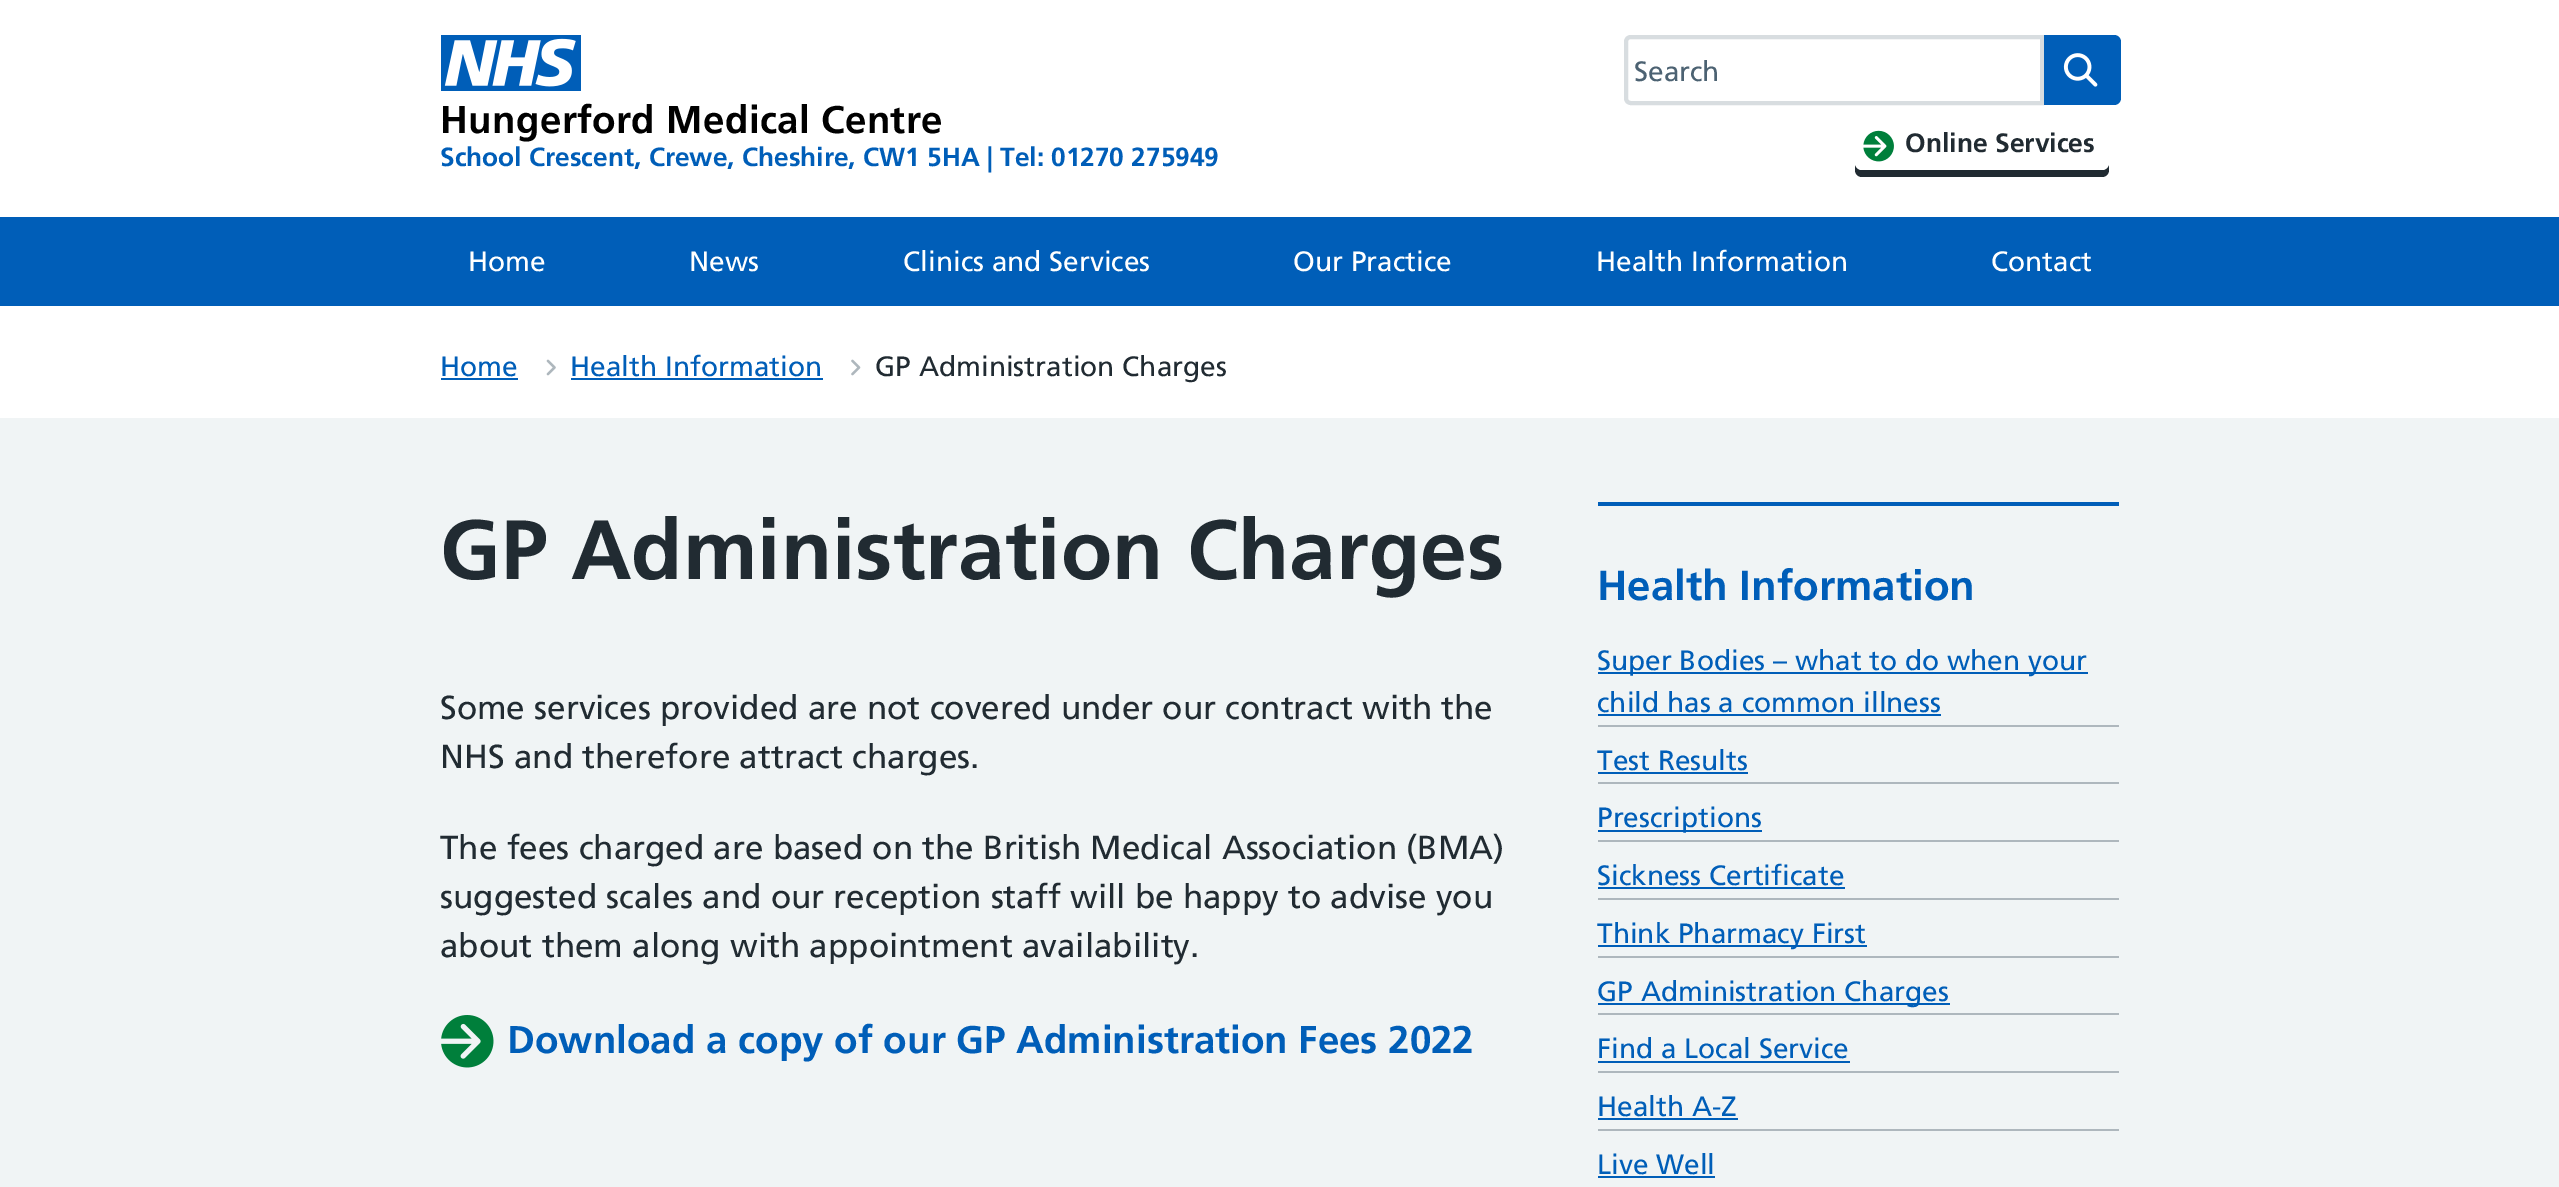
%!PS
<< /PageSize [2559 1187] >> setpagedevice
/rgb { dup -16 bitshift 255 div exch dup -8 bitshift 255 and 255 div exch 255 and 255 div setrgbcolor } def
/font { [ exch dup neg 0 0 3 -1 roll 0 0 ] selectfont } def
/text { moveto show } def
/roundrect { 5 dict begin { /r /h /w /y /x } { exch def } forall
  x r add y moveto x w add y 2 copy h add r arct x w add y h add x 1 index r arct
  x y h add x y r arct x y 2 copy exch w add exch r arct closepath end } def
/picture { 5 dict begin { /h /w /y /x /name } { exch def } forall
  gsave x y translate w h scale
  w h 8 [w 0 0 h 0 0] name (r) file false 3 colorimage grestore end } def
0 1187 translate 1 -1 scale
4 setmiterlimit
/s1 { /Frutiger-Bold 26.25 font 16#005EB8 rgb } def
/s2 { /Frutiger-Regular 28 font 16#4C6272 rgb } def
/s3 { /Frutiger-Bold 26.5 font 16#212B32 rgb } def
/s4 { /Frutiger-Regular 28 font 16#FFFFFF rgb } def
/s5 { /Frutiger-Regular 28 font 16#005EB8 rgb } def
/s6 { /Frutiger-Regular 28 font 16#212B32 rgb } def
/s7 { /Frutiger-Bold 84 font 16#212B32 rgb } def
/s8 { /Frutiger-Regular 33.25 font 16#212B32 rgb } def
/s9 { /Frutiger-Bold 38.5 font 16#005EB8 rgb } def
/s10 { /Frutiger-Bold 42 font 16#005EB8 rgb } def
16#F0F4F5 rgb
0 0 2559 1187 rectfill
16#FFFFFF rgb
0 0 2559 217 rectfill
(pic1.raw) 441 35 140 56 picture
/Frutiger-Bold 38.5 font
16#000000 rgb
440 133 moveto 0.35 0 (Hungerford Medical Centre) ashow
s1
(School Crescent, Crewe, Cheshire, CW1 5HA | Tel: 01270 275949) 440 166 text
16#D8DDE0 rgb
4 setlinewidth
1631 37 moveto 2042 37 lineto 2042 103 lineto 1631 103 lineto 1628 103 1626 101 1626 98 curveto 1626 42 lineto 1626 39 1628 37 1631 37 curveto closepath stroke
s2
(Search) 1634 81 text
16#005EB8 rgb
2044 35 moveto 2114 35 lineto 2118 35 2121 38 2121 42 curveto 2121 98 lineto 2121 102 2118 105 2114 105 curveto 2044 105 lineto closepath fill
(pic2.raw) 2063 53 35 34 picture
16#212B32 rgb
1855 163 moveto 1855 170 lineto 1855 174 1858 177 1862 177 curveto 2102 177 lineto 2106 177 2109 174 2109 170 curveto 2109 129 lineto 2109 163 lineto 2109 167 2106 170 2102 170 curveto 1862 170 lineto 1858 170 1855 167 1855 163 curveto closepath fill
16#FFFFFF rgb
1855 117 254 53 7 roundrect fill
(pic3.raw) 1863 130 31 32 picture
s3
(Online Services) 1905 152 text
16#005EB8 rgb
0 217 2559 89 rectfill
s4
(Home) 468 271 text
(News) 689 271 text
(Clinics and Services) 903 271 text
(Our Practice) 1293 271 text
(Health Information) 1596 271 text
(Contact) 1991 271 text
0 306 2559 112 rectfill
s5
(Home) 440 376 text
441 378 77 2 rectfill
(pic4.raw) 546 359 10 17 picture
(Health Information) 570 376 text
571 378 252 2 rectfill
(pic5.raw) 851 359 10 17 picture
s6
(GP Administration Charges) 875 376 text
s7
(GP Administration Charges) 440 579 text
s8
(Some services provided are not covered under our contract with the) 440 719 text
(NHS and therefore attract charges.) 440 768 text
(The fees charged are based on the British Medical Association \(BMA\)) 440 859 text
(suggested scales and our reception staff will be happy to advise you) 440 908 text
(about them along with appointment availability.) 440 957 text
(pic6.raw) 441 1015 53 53 picture
s9
(Download a copy of our GP Administration Fees 2022) 507 1053 text
1598 502 521 4 rectfill
s10
(Health Information) 1597 600 text
16#AEB7BD rgb
1598 725 521 2 rectfill
16#005EB8 rgb
1598 672 490 2 rectfill
s5
(Super Bodies – what to do when your) 1597 670 text
(child has a common illness) 1597 712 text
1598 714 343 2 rectfill
16#AEB7BD rgb
1598 782 521 2 rectfill
s5
(Test Results) 1597 770 text
1598 772 150 2 rectfill
16#AEB7BD rgb
1598 840 521 2 rectfill
16#005EB8 rgb
1598 830 164 2 rectfill
(Prescriptions) 1597 827 text
16#AEB7BD rgb
1598 898 521 2 rectfill
s5
(Sickness Certificate) 1597 885 text
1598 887 247 2 rectfill
16#AEB7BD rgb
1598 956 521 2 rectfill
16#005EB8 rgb
1598 945 269 2 rectfill
(Think Pharmacy First) 1597 943 text
16#AEB7BD rgb
1598 1013 521 2 rectfill
16#005EB8 rgb
1598 1003 352 2 rectfill
(GP Administration Charges) 1597 1001 text
16#AEB7BD rgb
1598 1071 521 2 rectfill
s5
(Find a Local Service) 1597 1058 text
1598 1061 252 2 rectfill
16#AEB7BD rgb
1598 1129 521 2 rectfill
s5
(Health A-Z) 1597 1116 text
1598 1118 140 2 rectfill
(Live Well) 1597 1174 text
1598 1176 117 2 rectfill
showpage
